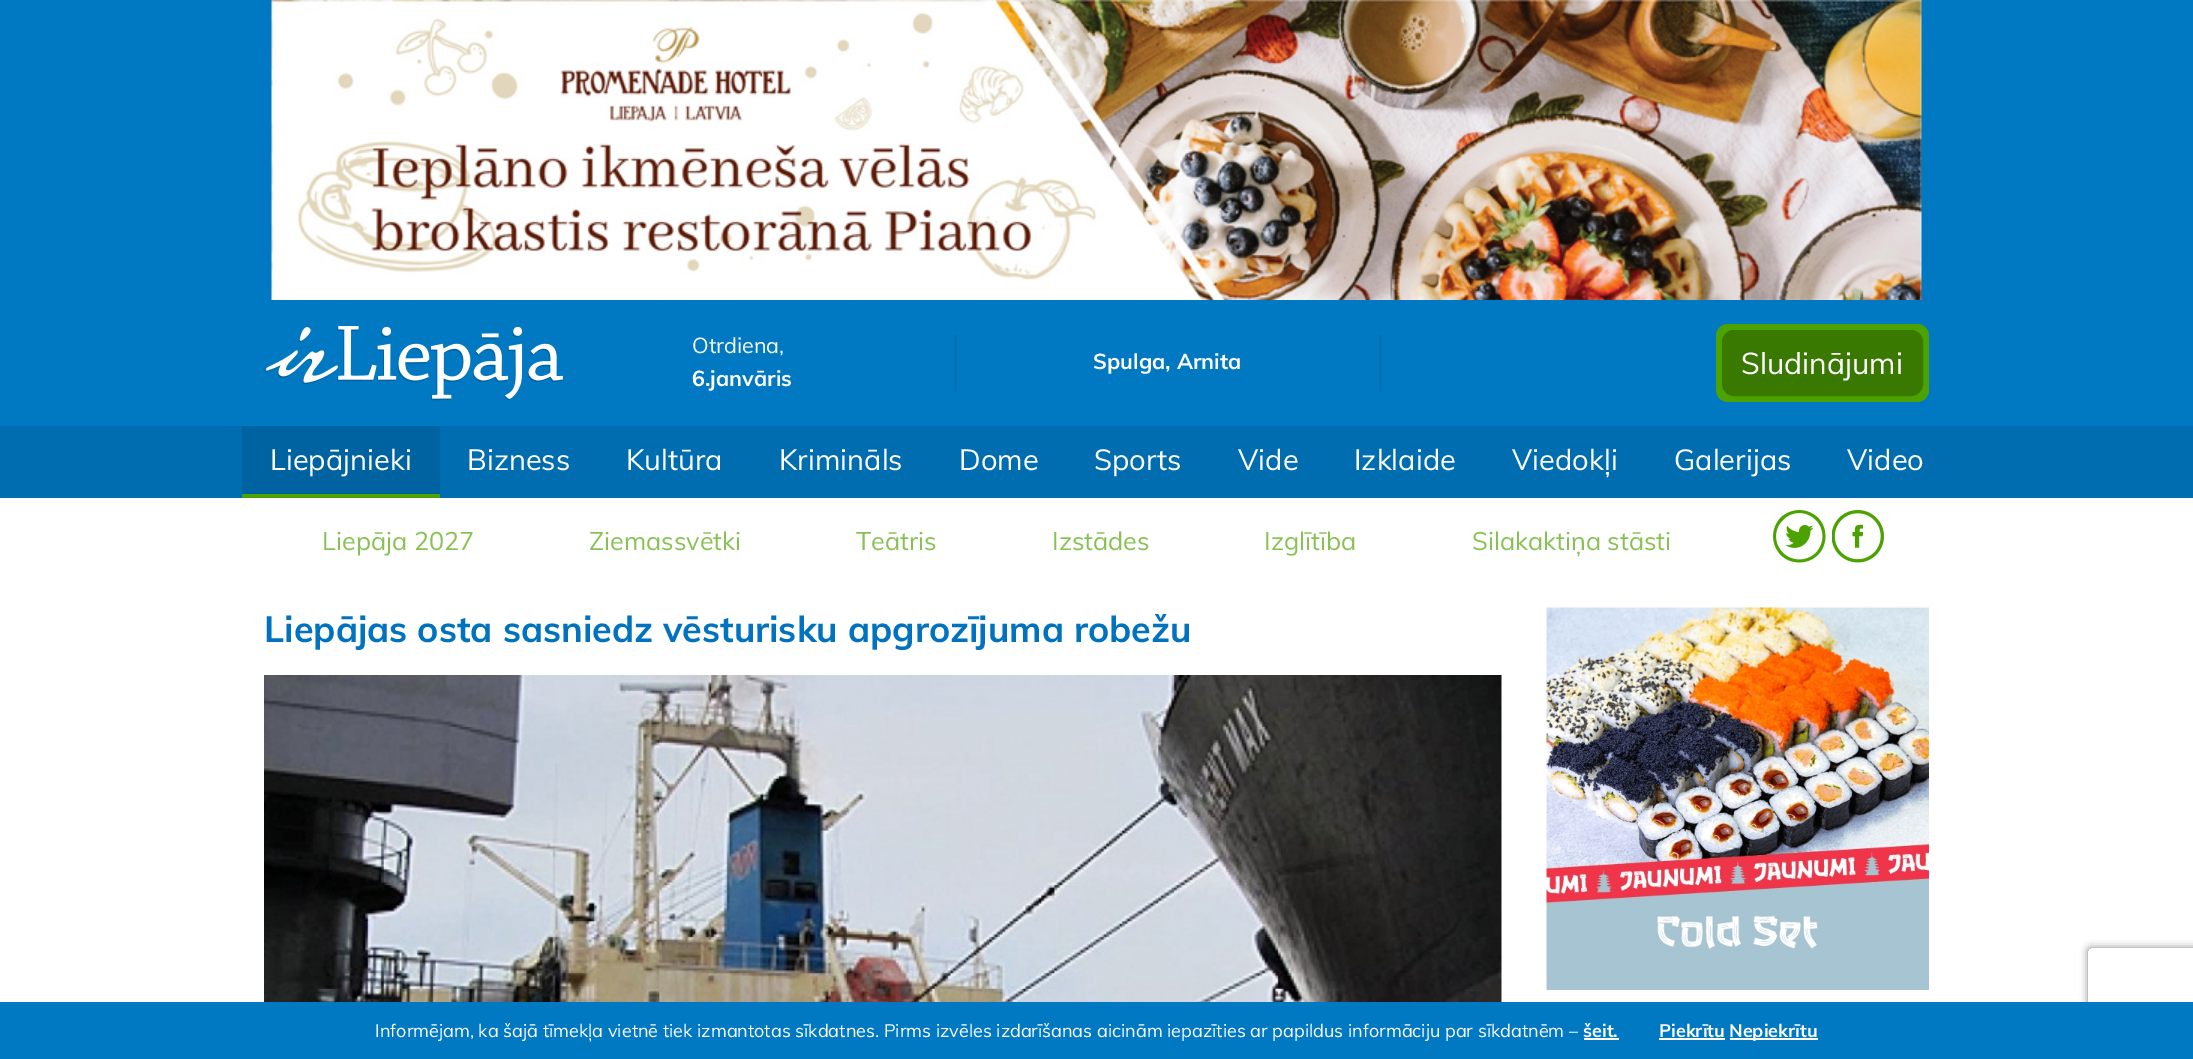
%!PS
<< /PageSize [2193 1059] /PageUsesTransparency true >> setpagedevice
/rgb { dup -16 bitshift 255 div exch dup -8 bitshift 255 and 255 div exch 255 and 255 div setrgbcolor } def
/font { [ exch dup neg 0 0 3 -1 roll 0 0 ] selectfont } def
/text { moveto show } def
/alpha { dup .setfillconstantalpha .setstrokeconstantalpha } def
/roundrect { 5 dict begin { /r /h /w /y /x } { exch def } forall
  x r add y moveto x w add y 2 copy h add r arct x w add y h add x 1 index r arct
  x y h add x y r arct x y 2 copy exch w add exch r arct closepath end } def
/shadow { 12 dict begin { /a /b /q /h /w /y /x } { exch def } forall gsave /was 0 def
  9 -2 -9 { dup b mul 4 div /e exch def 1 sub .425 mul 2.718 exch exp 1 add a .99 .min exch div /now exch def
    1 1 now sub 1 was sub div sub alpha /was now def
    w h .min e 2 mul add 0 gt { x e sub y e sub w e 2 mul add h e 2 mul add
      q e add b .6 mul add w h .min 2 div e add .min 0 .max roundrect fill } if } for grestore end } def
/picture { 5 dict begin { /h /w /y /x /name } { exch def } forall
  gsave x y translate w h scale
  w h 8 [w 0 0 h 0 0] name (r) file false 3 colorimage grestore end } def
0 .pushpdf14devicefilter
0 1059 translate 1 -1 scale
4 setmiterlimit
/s1 { /Muli-Regular 21.5 font 16#FFFFFF rgb } def
/s2 { /Muli-Bold 21.5 font 16#FFFFFF rgb } def
/s3 { /Muli-Regular 30 font 16#FFFFFF rgb } def
/s4 { /Muli-Regular 29 font 16#FFFFFF rgb } def
/s5 { /Muli-Regular 25.25 font 16#87C154 rgb } def
/s6 { /Muli-Bold 36 font 16#0072BF rgb } def
/s7 { /Muli-Regular 18 font 16#FFFFFF rgb } def
/s8 { /Muli-Bold 18 font 16#FFFFFF rgb } def
16#FFFFFF rgb
0 0 2193 1059 rectfill
16#0079C2 rgb
0 0 2193 426 rectfill
(pic1.raw) 271 0 1651 300 picture
(pic2.raw) 265 326 298 75 picture
s1
(Otrdiena,) 692 353 text
s2
(6.janvāris) 692 386 text
16#0070B6 rgb
1379 335 3 57 rectfill
954 335 3 57 rectfill
s2
(Spulga, Arnita) 1093 369 text
16#4CA200 rgb
1716 324 213 78 12 roundrect fill
16#397801 rgb
1723 331 199 64 11 roundrect gsave fill grestore
2 setlinewidth
stroke
s3
(Sludinājumi) 1741 374 text
16#006DB0 rgb
0 426 2193 72 rectfill
16#0063A1 rgb
242 426 198 68 rectfill
16#4CA200 rgb
242 494 198 4 rectfill
s4
(Liepājnieki) 270 470 text
(Bizness) 467 470 text
(Kultūra) 626 470 text
(Krimināls) 779 470 text
(Dome) 959 470 text
(Sports) 1094 470 text
(Vide) 1238 470 text
(Izklaide) 1354 470 text
(Viedokļi) 1512 470 text
(Galerijas) 1674 470 text
(Video) 1847 470 text
s5
(Liepāja 2027) 322 550 text
(Ziemassvētki) 589 550 text
(Teātris) 856 550 text
(Izstādes) 1052 550 text
(Izglītība) 1264 550 text
(Silakaktiņa stāsti) 1472 550 text
(pic3.raw) 1773 510 53 53 picture
(pic4.raw) 1832 510 52 53 picture
s6
(Liepājas osta sasniedz vēsturisku apgrozījuma robežu) 264 642 text
(pic5.raw) 264 675 1238 327 picture
(pic6.raw) 1546 607 383 383 picture
gsave
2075 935 moveto 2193 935 lineto 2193 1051 lineto 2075 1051 lineto closepath 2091 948 moveto 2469 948 lineto 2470.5 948 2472 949.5 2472 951 curveto 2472 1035 lineto 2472 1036.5 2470.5 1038 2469 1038 curveto 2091 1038 lineto 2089.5 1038 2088 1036.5 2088 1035 curveto 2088 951 lineto 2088 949.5 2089.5 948 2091 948 curveto closepath eoclip newpath
16#808080 rgb
2088 948 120 90 3 4 1 shadow
grestore
16#0079C2 rgb
0 1002 2193 57 rectfill
s7
(Informējam, ka šajā tīmekļa vietnē tiek izmantotas sīkdatnes. Pirms izvēles izdarīšanas aicinām iepazīties ar papildus informāciju par sīkdatnēm –) 375 1037 text
s8
(šeit.) 1583 1037 text
1584 1038 35 2 rectfill
(Piekrītu) 1659 1037 text
1659 1038 66 2 rectfill
1730 1038 88 2 rectfill
(Nepiekrītu) 1729 1037 text
.poppdf14devicefilter showpage
